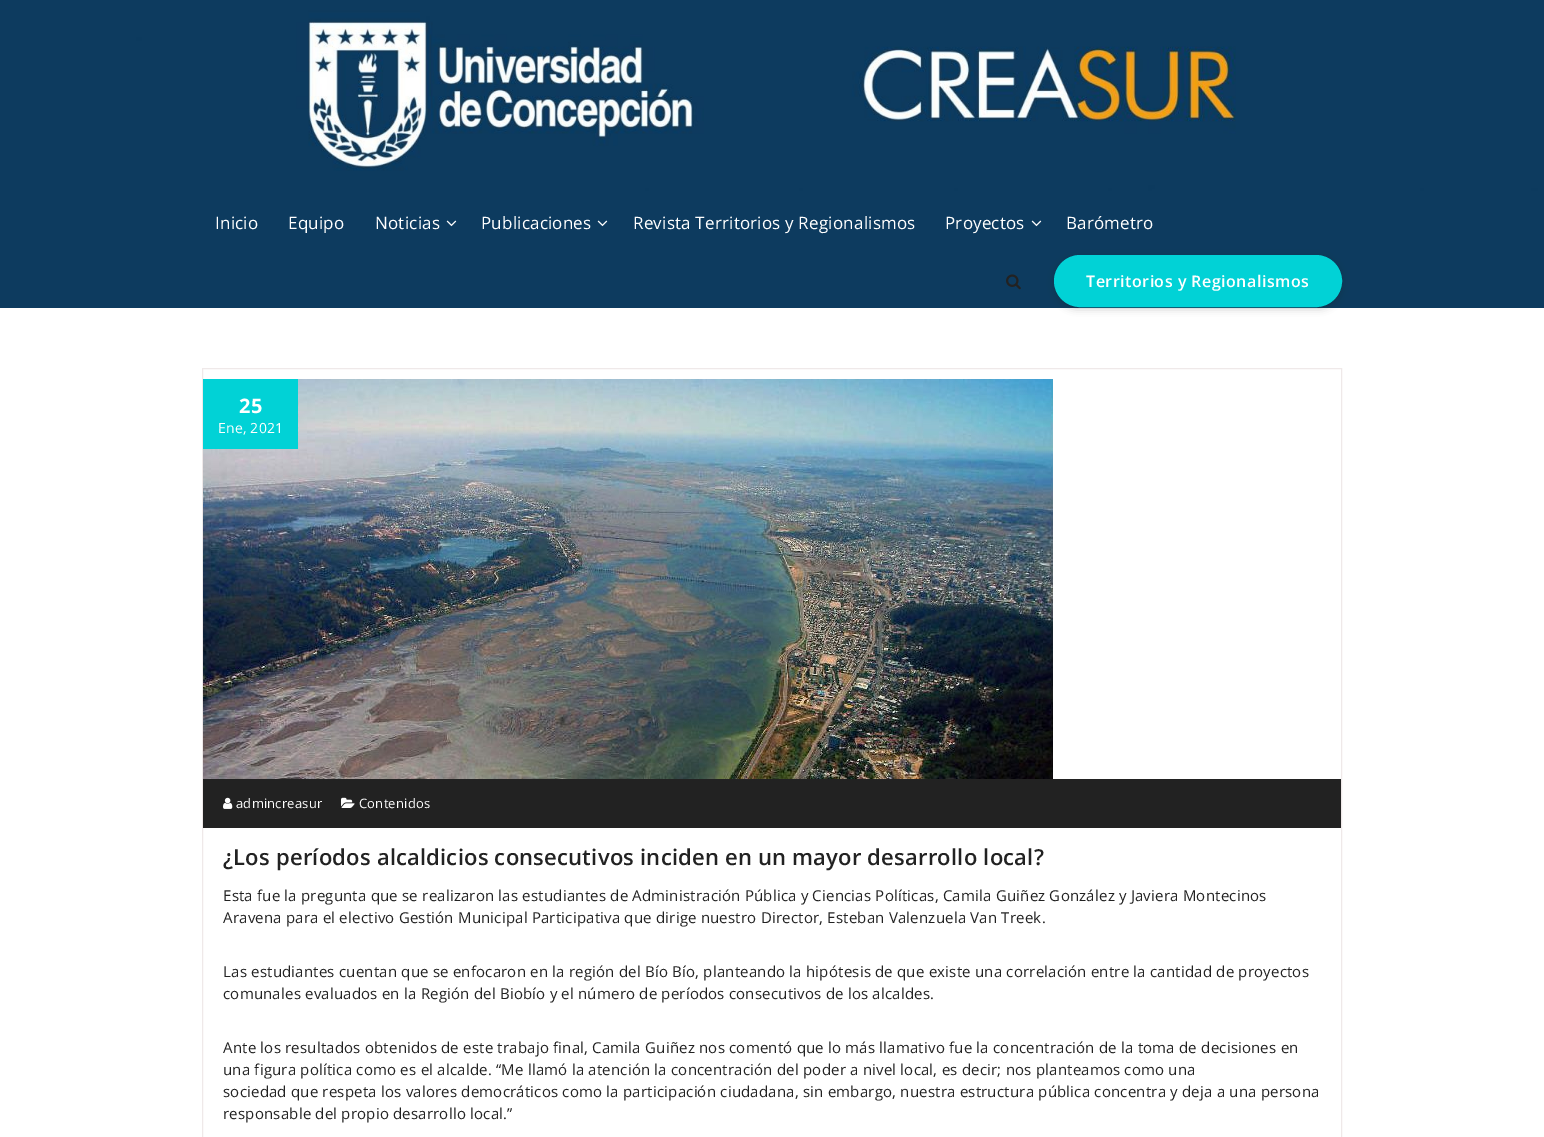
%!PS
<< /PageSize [1544 1137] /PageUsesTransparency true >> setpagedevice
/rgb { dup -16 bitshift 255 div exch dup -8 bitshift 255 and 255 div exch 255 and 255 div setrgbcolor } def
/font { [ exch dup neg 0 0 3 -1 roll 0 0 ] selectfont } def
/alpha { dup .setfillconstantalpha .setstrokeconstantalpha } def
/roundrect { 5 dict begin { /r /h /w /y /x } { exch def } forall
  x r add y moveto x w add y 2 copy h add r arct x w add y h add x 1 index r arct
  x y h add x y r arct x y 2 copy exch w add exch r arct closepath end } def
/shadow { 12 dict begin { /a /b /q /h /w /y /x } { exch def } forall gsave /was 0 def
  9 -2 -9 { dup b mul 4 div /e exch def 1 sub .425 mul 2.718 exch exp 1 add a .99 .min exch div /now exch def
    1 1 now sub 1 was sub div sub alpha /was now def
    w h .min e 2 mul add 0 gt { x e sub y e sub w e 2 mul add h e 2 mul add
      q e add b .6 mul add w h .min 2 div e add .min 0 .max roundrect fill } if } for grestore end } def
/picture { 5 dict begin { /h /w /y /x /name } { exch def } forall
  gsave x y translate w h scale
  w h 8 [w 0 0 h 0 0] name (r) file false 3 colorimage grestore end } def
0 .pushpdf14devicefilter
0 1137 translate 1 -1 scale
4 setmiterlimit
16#0D3B5F rgb
0 0 1544 1137 rectfill
16#FFFFFF rgb
0 308 1544 829 rectfill
(pic1.raw) 0 10 1544 181 picture
/OpenSans-Regular 17 font
215 229 moveto 0.2 0 (Inicio) ashow
288 229 moveto 0.2 0 (Equipo) ashow
375 229 moveto 0.2 0 (Noticias) ashow
(pic2.raw) 446 220 11 7 picture
481 229 moveto 0.2 0 (Publicaciones) ashow
(pic2.raw) 597 220 11 7 picture
633 229 moveto 0.2 0 (Revista Territorios y Regionalismos) ashow
945 229 moveto 0.2 0 (Proyectos) ashow
(pic2.raw) 1031 220 11 7 picture
1066 229 moveto 0.2 0 (Barómetro) ashow
(pic3.raw) 1006 274 15 16 picture
16#1D1D1D rgb
1055 258 286 50 25 4 0.28 shadow
16#01D2D6 rgb
1055 256 286 50 25 roundrect gsave fill grestore
2 setlinewidth
stroke
/OpenSans-SemiBold 16 font
16#FFFFFF rgb
1086 287 moveto 0.5 0 (Territorios y Regionalismos) ashow
16#EFE9E9 rgb
1 setlinewidth
202.5 368.5 1139 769 rectstroke
(pic4.raw) 203 379 850 400 picture
16#01D2D6 rgb
203 379 95 70 rectfill
/OpenSans-Bold 20 font
16#FFFFFF rgb
239 413 moveto 0.2 0 (25) ashow
/OpenSans-Regular 14 font
218 433 moveto 0.2 0 (Ene, 2021) ashow
16#222222 rgb
203 779 1138 49 rectfill
(pic5.raw) 223 797 10 12 picture
/OpenSans-Regular 13 font
16#FFFFFF rgb
236 808 moveto 0.2 0 (admincreasur) ashow
(pic6.raw) 341 797 14 11 picture
359 808 moveto 0.2 0 (Contenidos) ashow
/OpenSans-SemiBold 22 font
16#222222 rgb
223 865 moveto 0.2 0 (¿Los períodos alcaldicios consecutivos inciden en un mayor desarrollo local?) ashow
/OpenSans-Regular 15 font
223 901 moveto 0.2 0 (Esta fue la pregunta que se realizaron las estudiantes de Administración Pública y Ciencias Políticas, Camila Guiñez González y Javiera Montecinos) ashow
223 923 moveto 0.2 0 (Aravena para el electivo Gestión Municipal Participativa que dirige nuestro Director, Esteban Valenzuela Van Treek.) ashow
223 977 moveto 0.2 0 (Las estudiantes cuentan que se enfocaron en la región del Bío Bío, planteando la hipótesis de que existe una correlación entre la cantidad de proyectos) ashow
223 999 moveto 0.2 0 (comunales evaluados en la Región del Biobío y el número de períodos consecutivos de los alcaldes.) ashow
223 1053 moveto 0.2 0 (Ante los resultados obtenidos de este trabajo final, Camila Guiñez nos comentó que lo más llamativo fue la concentración de la toma de decisiones en) ashow
223 1075 moveto 0.2 0 (una figura política como es el alcalde. “Me llamó la atención la concentración del poder a nivel local, es decir; nos planteamos como una) ashow
223 1097 moveto 0.2 0 (sociedad que respeta los valores democráticos como la participación ciudadana, sin embargo, nuestra estructura pública concentra y deja a una persona) ashow
223 1119 moveto 0.2 0 (responsable del propio desarrollo local.”) ashow
.poppdf14devicefilter showpage
